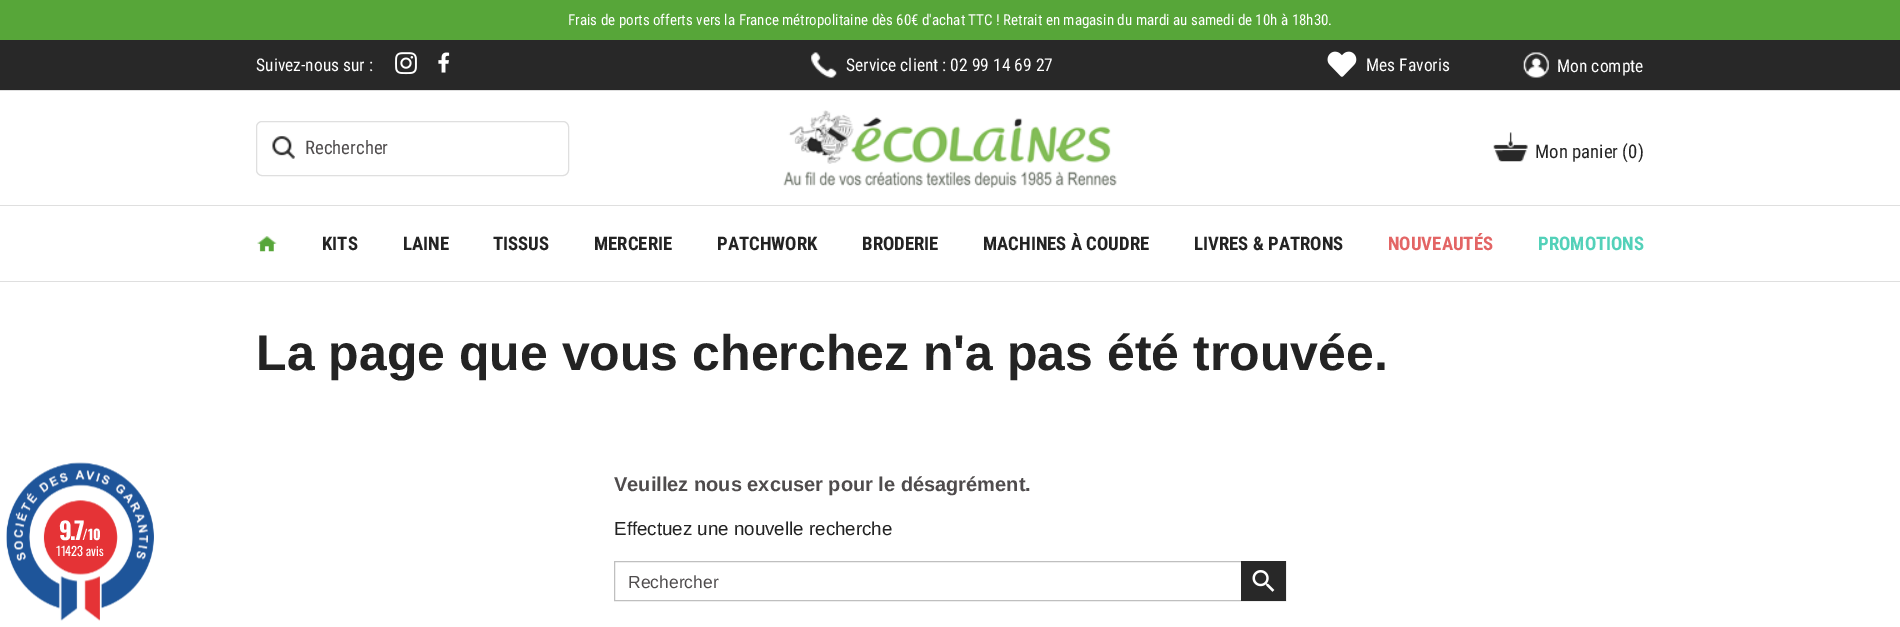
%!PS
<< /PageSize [1900 627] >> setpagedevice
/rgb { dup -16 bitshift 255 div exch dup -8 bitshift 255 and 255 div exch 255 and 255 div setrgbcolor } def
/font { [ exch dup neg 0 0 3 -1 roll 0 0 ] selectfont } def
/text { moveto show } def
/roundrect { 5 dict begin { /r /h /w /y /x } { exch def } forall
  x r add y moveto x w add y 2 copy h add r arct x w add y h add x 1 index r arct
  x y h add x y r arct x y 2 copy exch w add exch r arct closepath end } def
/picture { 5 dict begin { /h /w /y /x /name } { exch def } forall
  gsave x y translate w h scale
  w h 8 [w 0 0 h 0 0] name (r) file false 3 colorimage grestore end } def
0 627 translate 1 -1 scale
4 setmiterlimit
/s1 { /Oswald-Bold 14 font 16#FFFFFF rgb } def
/s2 { /Oswald-Regular 12.5 font 16#FFFFFF rgb } def
/s3 { /RobotoCondensed-Regular 15 font 16#FFFFFF rgb } def
/s4 { /RobotoCondensed-Regular 17.5 font 16#FFFFFF rgb } def
/s5 { /RobotoCondensed-Regular 18.75 font 16#4F4C4D rgb } def
/s6 { /RobotoCondensed-Regular 18.75 font 16#232323 rgb } def
/s7 { /RobotoCondensed-Bold 18.75 font 16#232323 rgb } def
/s8 { /RobotoCondensed-Bold 18.75 font 16#E36565 rgb } def
/s9 { /RobotoCondensed-Bold 18.75 font 16#53D1B9 rgb } def
/s10 { /LiberationSans-Bold 50 font 16#232323 rgb } def
/s11 { /LiberationSans-Bold 20 font 16#4F4C4D rgb } def
/s12 { /LiberationSans-Regular 18.75 font 16#232323 rgb } def
/s13 { /LiberationSans-Regular 17.5 font 16#4F4C4D rgb } def
16#FFFFFF rgb
0 0 1900 627 rectfill
(pic1.raw) 6 462 148 159 picture
/Oswald-Bold 24 font
59 540 moveto -2 0 (9.7) ashow
s1
(/10) 82 540 text
s2
(11423 avis) 56 556 text
16#57A639 rgb
0 0 1900 40 rectfill
s3
(Frais de ports offerts vers la France métropolitaine dès 60€ d'achat TTC ! Retrait en magasin du mardi au samedi de 10h à 18h30.) 568 25 text
16#282828 rgb
0 40 1900 50 rectfill
16#DFDFDF rgb
0 90 1900 1 rectfill
s4
(Suivez-nous sur :) 256 71 text
(pic2.raw) 395 52 22 23 picture
(pic3.raw) 438 52 12 21 picture
(pic4.raw) 811 52 26 26 picture
(Service client : 02 99 14 69 27) 846 71 text
(pic5.raw) 1327 51 30 26 picture
(Mes Favoris) 1366 71 text
(pic6.raw) 1523 52 26 26 picture
(Mon compte) 1557 72 text
16#DFDFDF rgb
256.5 121.5 312 54 5.5 roundrect stroke
(pic7.raw) 272 136 23 23 picture
s5
(Rechercher) 305 154 text
(pic8.raw) 783 110 334 78 picture
(pic9.raw) 1493 132 35 30 picture
s6
(Mon panier \(0\)) 1535 158 text
16#DFDFDF rgb
0 205 1900 1 rectfill
0 281 1900 1 rectfill
(pic10.raw) 257 236 20 16 picture
s7
(KITS) 322 250 text
(LAINE) 403 250 text
(TISSUS) 493 250 text
(MERCERIE) 594 250 text
(PATCHWORK) 717 250 text
(BRODERIE) 862 250 text
(MACHINES À COUDRE) 983 250 text
(LIVRES & PATRONS) 1194 250 text
s8
(NOUVEAUTÉS) 1388 250 text
s9
(PROMOTIONS) 1538 250 text
s10
(La page que vous cherchez n'a pas été trouvée.) 256 370 text
s11
(Veuillez nous excuser pour le désagrément.) 614 491 text
s12
(Effectuez une nouvelle recherche) 614 535 text
16#BFBFBF rgb
614.5 561.5 671 39 rectstroke
s13
(Rechercher) 628 588 text
16#282828 rgb
1241 561 45 40 rectfill
(pic11.raw) 1252 570 23 22 picture
showpage
